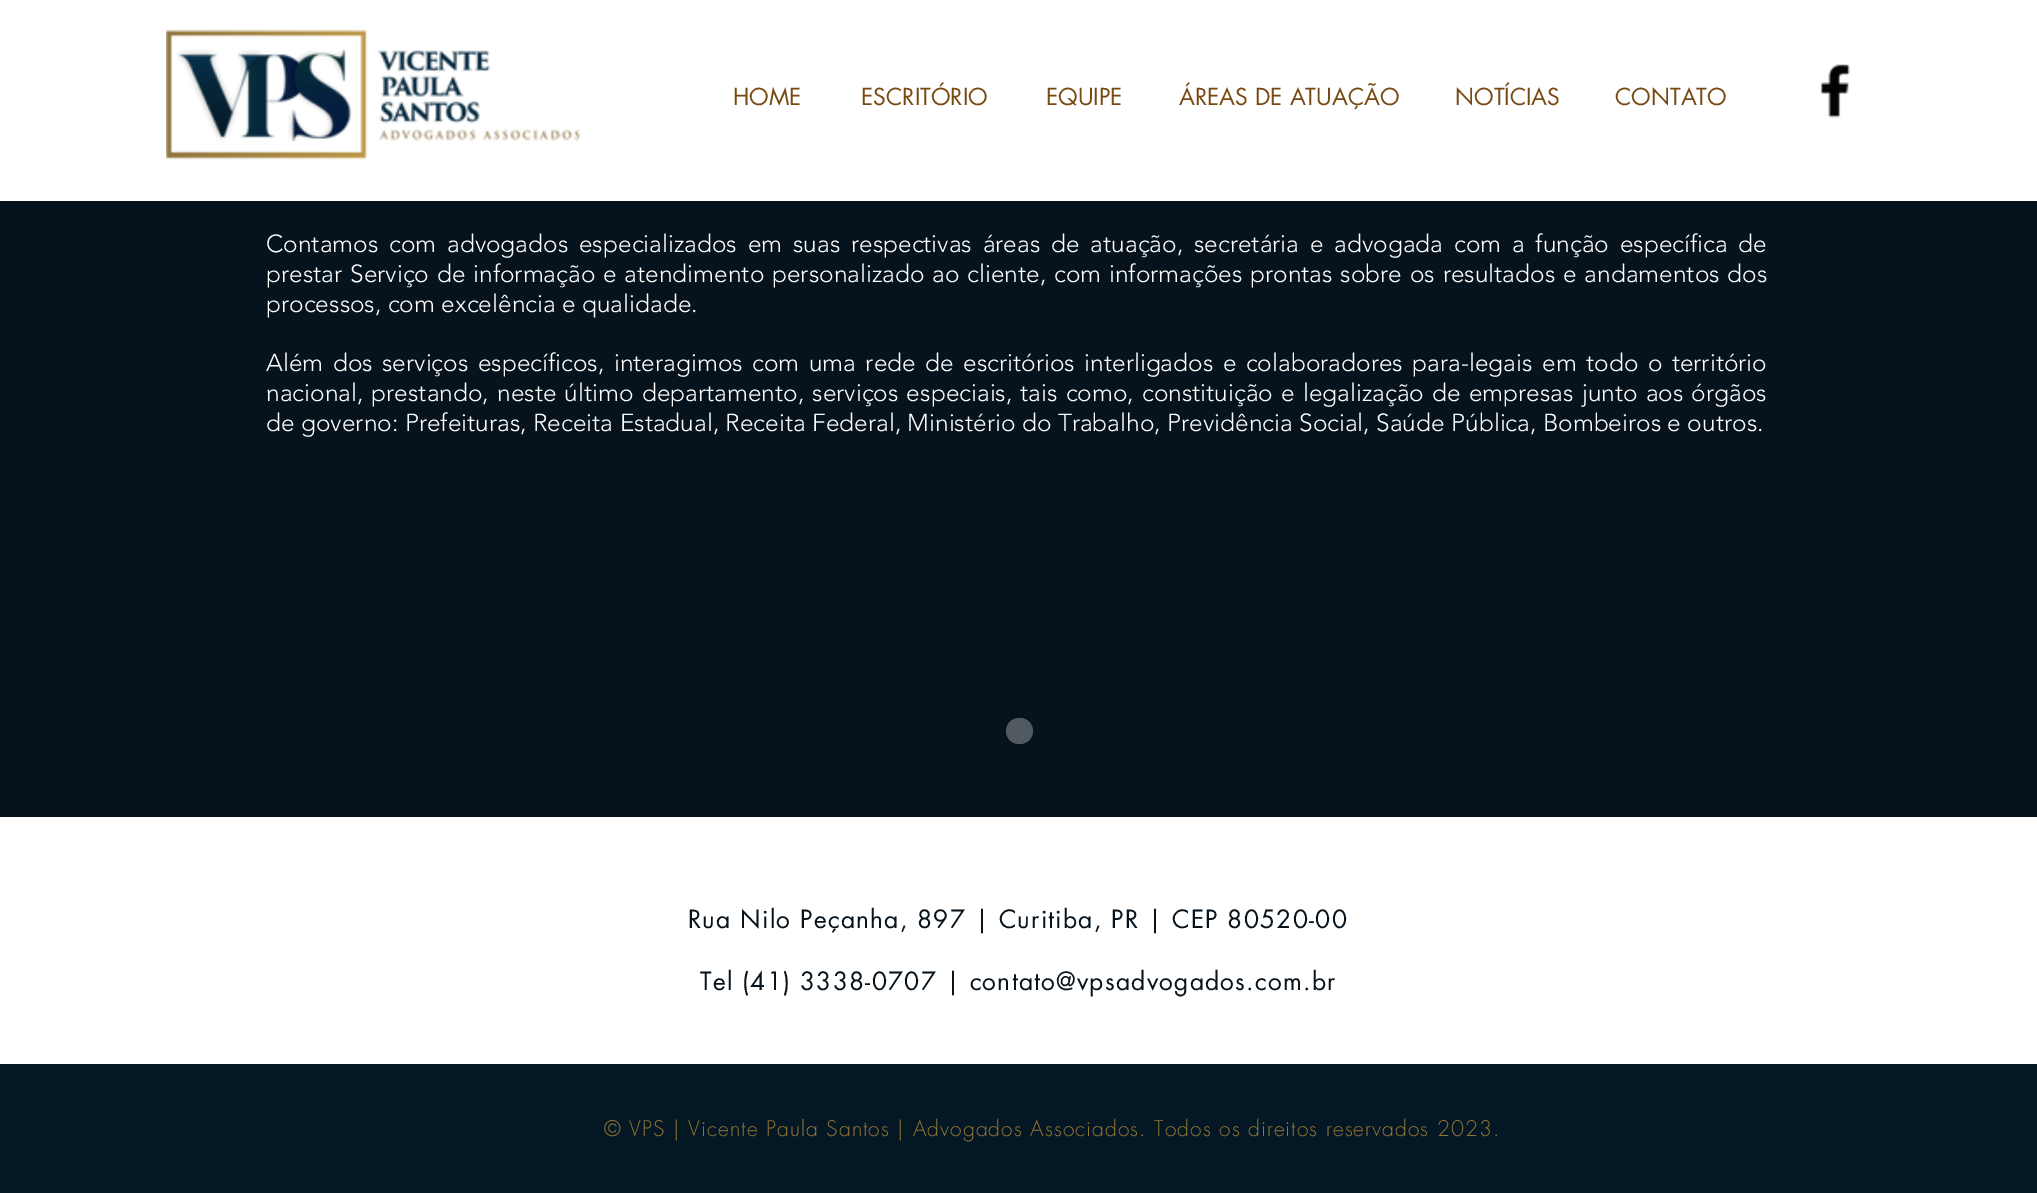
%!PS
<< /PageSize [2037 1193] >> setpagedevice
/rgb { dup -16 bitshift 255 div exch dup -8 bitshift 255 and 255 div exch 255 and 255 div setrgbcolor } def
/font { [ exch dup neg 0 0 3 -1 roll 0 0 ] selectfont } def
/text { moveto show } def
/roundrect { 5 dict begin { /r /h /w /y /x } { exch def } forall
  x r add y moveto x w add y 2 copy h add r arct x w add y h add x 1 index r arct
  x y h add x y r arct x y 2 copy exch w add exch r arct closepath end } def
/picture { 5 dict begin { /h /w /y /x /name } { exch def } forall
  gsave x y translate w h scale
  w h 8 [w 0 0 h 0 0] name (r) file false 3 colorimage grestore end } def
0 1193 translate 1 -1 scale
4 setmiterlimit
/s1 { /futura-Regular 22.75 font 16#784911 rgb } def
/s2 { /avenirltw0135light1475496-Light 24.5 font 16#FFFFFF rgb } def
16#FFFFFF rgb
0 0 2037 1193 rectfill
(pic1.raw) 166 29 414 131 picture
s1
(HOME) 733 105 text
(ESCRITÓRIO) 861 105 text
(EQUIPE) 1046 105 text
(ÁREAS DE ATUAÇÃO) 1179 105 text
(NOTÍCIAS) 1455 105 text
(CONTATO) 1615 105 text
(pic2.raw) 1820 64 31 54 picture
16#06131C rgb
0 201 2037 616 rectfill
/avenirltw0135light1475496-Light 24.5 font
16#FFFFFF rgb
266 252 moveto 4.4 0 32 (Contamos com advogados especializados em suas respectivas áreas de atuação, secretária e advogada com a função específica de) widthshow
266 282 moveto 1.4 0 32 (prestar Serviço de informação e atendimento personalizado ao cliente, com informações prontas sobre os resultados e andamentos dos) widthshow
(processos, com excelência e qualidade.) 266 312 text
266 371 moveto 3.1 0 32 (Além dos serviços específicos, interagimos com uma rede de escritórios interligados e colaboradores para-legais em todo o território) widthshow
266 401 moveto 1.75 0 32 (nacional, prestando, neste último departamento, serviços especiais, tais como, constituição e legalização de empresas junto aos órgãos) widthshow
(de governo: Prefeituras, Receita Estadual, Receita Federal, Ministério do Trabalho, Previdência Social, Saúde Pública, Bombeiros e outros.) 266 431 text
16#515A60 rgb
1006 718 27 26 13 roundrect fill
/futura-Regular 24.5 font
16#06131C rgb
688 928 moveto 1.22 0 (Rua Nilo Peçanha, 897 | Curitiba, PR | CEP 80520-00) ashow
700 990 moveto 1.22 0 (Tel \(41\) 3338-0707 | contato@vpsadvogados.com.br) ashow
16#041724 rgb
0 1064 2037 129 rectfill
/futura-Light 21 font
16#947532 rgb
604 1136 moveto 1.05 0 (© VPS | Vicente Paula Santos | Advogados Associados. Todos os direitos reservados 2023.) ashow
showpage
